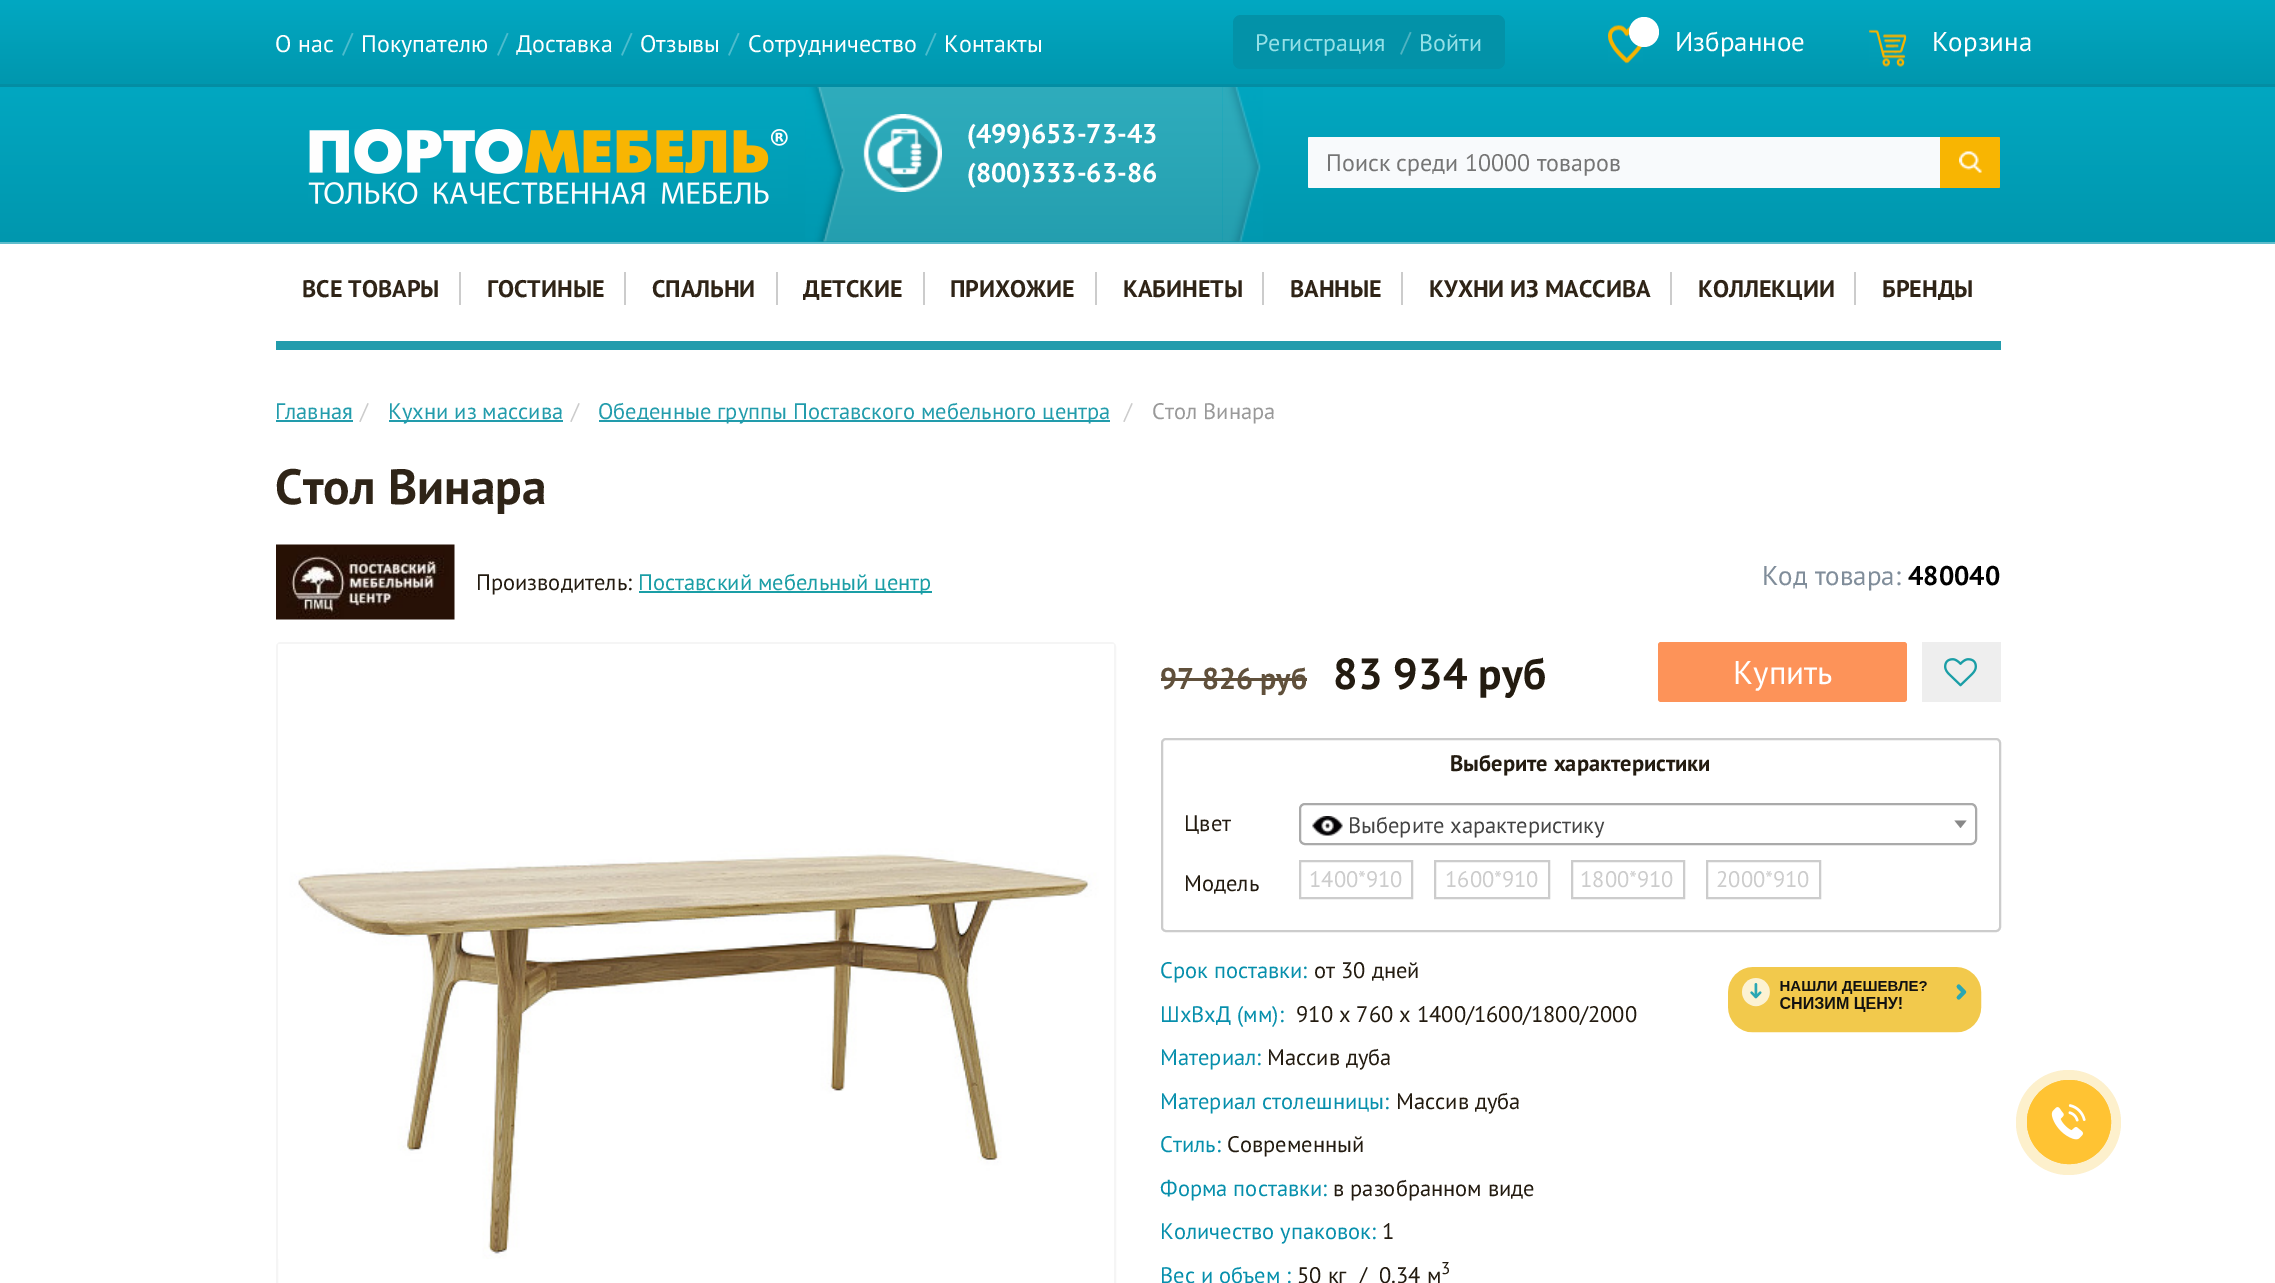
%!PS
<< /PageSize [2275 1283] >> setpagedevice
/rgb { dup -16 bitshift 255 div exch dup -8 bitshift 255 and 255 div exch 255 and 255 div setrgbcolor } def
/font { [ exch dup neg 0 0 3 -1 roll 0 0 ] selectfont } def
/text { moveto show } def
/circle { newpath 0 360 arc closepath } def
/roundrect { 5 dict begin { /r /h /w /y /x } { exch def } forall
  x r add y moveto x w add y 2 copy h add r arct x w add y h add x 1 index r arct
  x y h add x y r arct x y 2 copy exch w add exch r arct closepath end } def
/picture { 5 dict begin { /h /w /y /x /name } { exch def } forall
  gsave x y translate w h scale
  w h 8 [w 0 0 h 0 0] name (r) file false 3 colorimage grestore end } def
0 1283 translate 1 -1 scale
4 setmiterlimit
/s1 { /PTSans-Regular 24 font 16#FFFFFF rgb } def
/s2 { /PTSans-Regular 27 font 16#4DBCCD rgb } def
/s3 { /PTSans-Regular 24 font 16#94E0E7 rgb } def
/s4 { /PTSans-Regular 27 font 16#4FB3C2 rgb } def
/s5 { /PTSans-Regular 27 font 16#FFFFFF rgb } def
/s6 { /PTSans-Bold 27 font 16#FFFFFF rgb } def
/s7 { /PTSans-Regular 24 font 16#757575 rgb } def
/s8 { /PTSans-Bold 24 font 16#2F2417 rgb } def
/s9 { /PTSans-Regular 22.5 font 16#229CAC rgb } def
/s10 { /PTSans-Regular 22.5 font 16#CCCCCC rgb } def
/s11 { /PTSans-Regular 22.5 font 16#999999 rgb } def
/s12 { /PTSans-Bold 49.5 font 16#2F2417 rgb } def
/s13 { /PTSans-Regular 22.5 font 16#231B10 rgb } def
/s14 { /PTSans-Regular 22.5 font 16#1A9EA6 rgb } def
/s15 { /PTSans-Regular 27 font 16#808D9A rgb } def
/s16 { /PTSans-Bold 27 font 16#000000 rgb } def
/s17 { /PTSans-Bold 30 font 16#60503B rgb } def
/s18 { /PTSans-Bold 43.5 font 16#231B10 rgb } def
/s19 { /PTSans-Regular 33 font 16#FFFFFF rgb } def
/s20 { /PTSans-Bold 22.5 font 16#231B10 rgb } def
/s21 { /PTSans-Regular 22.5 font 16#444444 rgb } def
/s22 { /PTSans-Regular 22.5 font 16#068FAC rgb } def
/s23 { /PTSans-Regular 17 font 16#231B10 rgb } def
16#FFFFFF rgb
0 0 2275 1283 rectfill
gsave 0 0 moveto 2275 0 lineto 2275 84 lineto 0 84 lineto closepath clip newpath
<< /ShadingType 2 /ColorSpace /DeviceRGB /Coords [1138 0 1138 84] /Extend [true true] /Function << /FunctionType 2 /Domain [0 1] /C0 [0.008 0.659 0.761] /C1 [0 0.592 0.682] /N 1 >> >> shfill grestore
16#038DA3 rgb
0 84 2275 3 rectfill
s1
(О нас) 275 52 text
s2
(/) 343 52 text
s1
(Покупателю) 361 52 text
s2
(/) 498 52 text
s1
(Доставка) 516 52 text
s2
(/) 622 52 text
s1
(Отзывы) 640 52 text
s2
(/) 729 52 text
s1
(Сотрудничество) 748 52 text
s2
(/) 926 52 text
s1
(Контакты) 944 52 text
16#0392A8 rgb
1233 15 272 54 8 roundrect fill
s3
(Регистрация) 1255 51 text
s4
(/) 1401 51 text
s3
(Войти) 1419 51 text
(pic1.raw) 1608 25 35 39 picture
16#FFFFFF rgb
1644 32 15 circle fill
s5
(Избранное) 1675 51 text
(pic2.raw) 1869 29 38 38 picture
(Корзина) 1932 51 text
gsave 0 87 moveto 2275 87 lineto 2275 242 lineto 0 242 lineto closepath clip newpath
<< /ShadingType 2 /ColorSpace /DeviceRGB /Coords [1138 76 1138 242] /Extend [true true] /Function << /FunctionType 2 /Domain [0 1] /C0 [0.008 0.659 0.761] /C1 [0 0.592 0.682] /N 1 >> >> shfill grestore
16#60BDCC rgb
0 242 2275 2 rectfill
(pic3.raw) 308 129 480 75 picture
(pic4.raw) 805 87 41 155 picture
(pic5.raw) 1222 87 41 155 picture
(pic6.raw) 846 87 377 155 picture
(pic7.raw) 863 114 79 78 picture
s6
(\(499\)653-73-43) 967 143 text
(\(800\)333-63-86) 967 182 text
16#F8FAFC rgb
1309.5 137 moveto 1940 137 lineto 1940 188 lineto 1309.5 188 lineto 1308.5 188 1308 187.5 1308 186.5 curveto 1308 138.5 lineto 1308 137.5 1308.5 137 1309.5 137 curveto closepath fill
s7
(Поиск среди 10000 товаров) 1326 171 text
16#F8B502 rgb
1940 137 moveto 1998.5 137 lineto 1999.5 137 2000 137.5 2000 138.5 curveto 2000 186.5 lineto 2000 187.5 1999.5 188 1998.5 188 curveto 1940 188 lineto closepath fill
(pic8.raw) 1959 151 23 22 picture
16#CCCCCC rgb
459 272 2 33 rectfill
s8
(ВСЕ ТОВАРЫ) 302 297 text
16#CCCCCC rgb
624 272 2 33 rectfill
s8
(ГОСТИНЫЕ) 487 297 text
16#CCCCCC rgb
776 272 2 33 rectfill
s8
(СПАЛЬНИ) 652 297 text
16#CCCCCC rgb
923 272 2 33 rectfill
s8
(ДЕТСКИЕ) 803 297 text
16#CCCCCC rgb
1095 272 2 33 rectfill
s8
(ПРИХОЖИЕ) 950 297 text
16#CCCCCC rgb
1262 272 2 33 rectfill
s8
(КАБИНЕТЫ) 1123 297 text
16#CCCCCC rgb
1401 272 2 33 rectfill
s8
(ВАННЫЕ) 1290 297 text
16#CCCCCC rgb
1670 272 2 33 rectfill
s8
(КУХНИ ИЗ МАССИВА) 1429 297 text
16#CCCCCC rgb
1854 272 2 33 rectfill
s8
(КОЛЛЕКЦИИ) 1698 297 text
(БРЕНДЫ) 1882 297 text
16#229CAC rgb
276 341 1725 9 rectfill
s9
(Главная) 275 419 text
276 420 77 2 rectfill
s10
(/) 360 419 text
16#229CAC rgb
389 420 174 2 rectfill
(Кухни из массива) 388 419 text
s10
(/) 571 419 text
16#229CAC rgb
599 420 511 2 rectfill
(Обеденные группы Поставского мебельного центра) 598 419 text
s10
(/) 1124 419 text
s11
(Стол Винара) 1152 419 text
s12
(Стол Винара) 275 504 text
(pic9.raw) 276 544 179 76 picture
s13
(Производитель:) 476 590 text
16#1A9EA6 rgb
639 591 293 2 rectfill
(Поставский мебельный центр) 638 590 text
s15
(Код товара:) 1762 585 text
s16
(480040) 1908 585 text
16#F5F5F5 rgb
2 setlinewidth
277 643 838 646 4 roundrect stroke
(pic10.raw) 278 644 836 615 picture
s17
(97 826 руб) 1160 689 text
1161 678 146 3 rectfill
s18
(83 934 руб) 1333 689 text
16#FD9359 rgb
1658 642 249 60 3 roundrect fill
s19
(Купить) 1733 684 text
16#EEEEEE rgb
1922 642 79 60 rectfill
(pic11.raw) 1944 658 33 29 picture
16#CCCCCC rgb
1162 739 838 192 4 roundrect stroke
s20
(Выберите характеристики) 1450 771 text
s13
(Цвет) 1184 831 text
16#AAAAAA rgb
1300 804 676 40 5 roundrect stroke
(pic12.raw) 1312 816 31 20 picture
s21
(Выберите характеристику) 1348 833 text
16#888888 rgb
1954.5 820.5 moveto 1966.5 820.5 lineto 1960.5 828 lineto closepath fill
s13
(Модель) 1184 891 text
16#CCCCCC rgb
1300 861 112 37 rectstroke
(1400*910) 1309 887 text
1435 861 114 37 rectstroke
(1600*910) 1445 887 text
1572 861 112 37 rectstroke
(1800*910) 1580 887 text
1707 861 113 37 rectstroke
(2000*910) 1716 887 text
s22
(Срок поставки:) 1160 978 text
s13
(от 30 дней) 1314 978 text
(pic13.raw) 1728 967 254 66 picture
s22
(ШxВxД \(мм\):) 1160 1022 text
s13
(910 x 760 x 1400/1600/1800/2000) 1296 1022 text
s22
(Материал:) 1160 1065 text
s13
(Массив дуба) 1267 1065 text
s22
(Материал столешницы:) 1160 1109 text
s13
(Массив дуба) 1396 1109 text
s22
(Стиль:) 1160 1152 text
s13
(Современный) 1227 1152 text
s22
(Форма поставки:) 1160 1196 text
s13
(в разобранном виде) 1333 1196 text
s22
(Количество упаковок:) 1160 1239 text
s13
(1) 1382 1239 text
s22
(Вес и объем :) 1160 1283 text
s13
(50 кг) 1297 1283 text
(/) 1359 1283 text
(0.34 м) 1379 1283 text
s23
(3) 1441 1274 text
16#FDF0CC rgb
2068.5 1122.5 52.5 circle fill
16#FFC333 rgb
1 setlinewidth
2069 1122 41.5 circle stroke
2069 1122 42 circle fill
(pic14.raw) 2051 1104 35 36 picture
showpage
